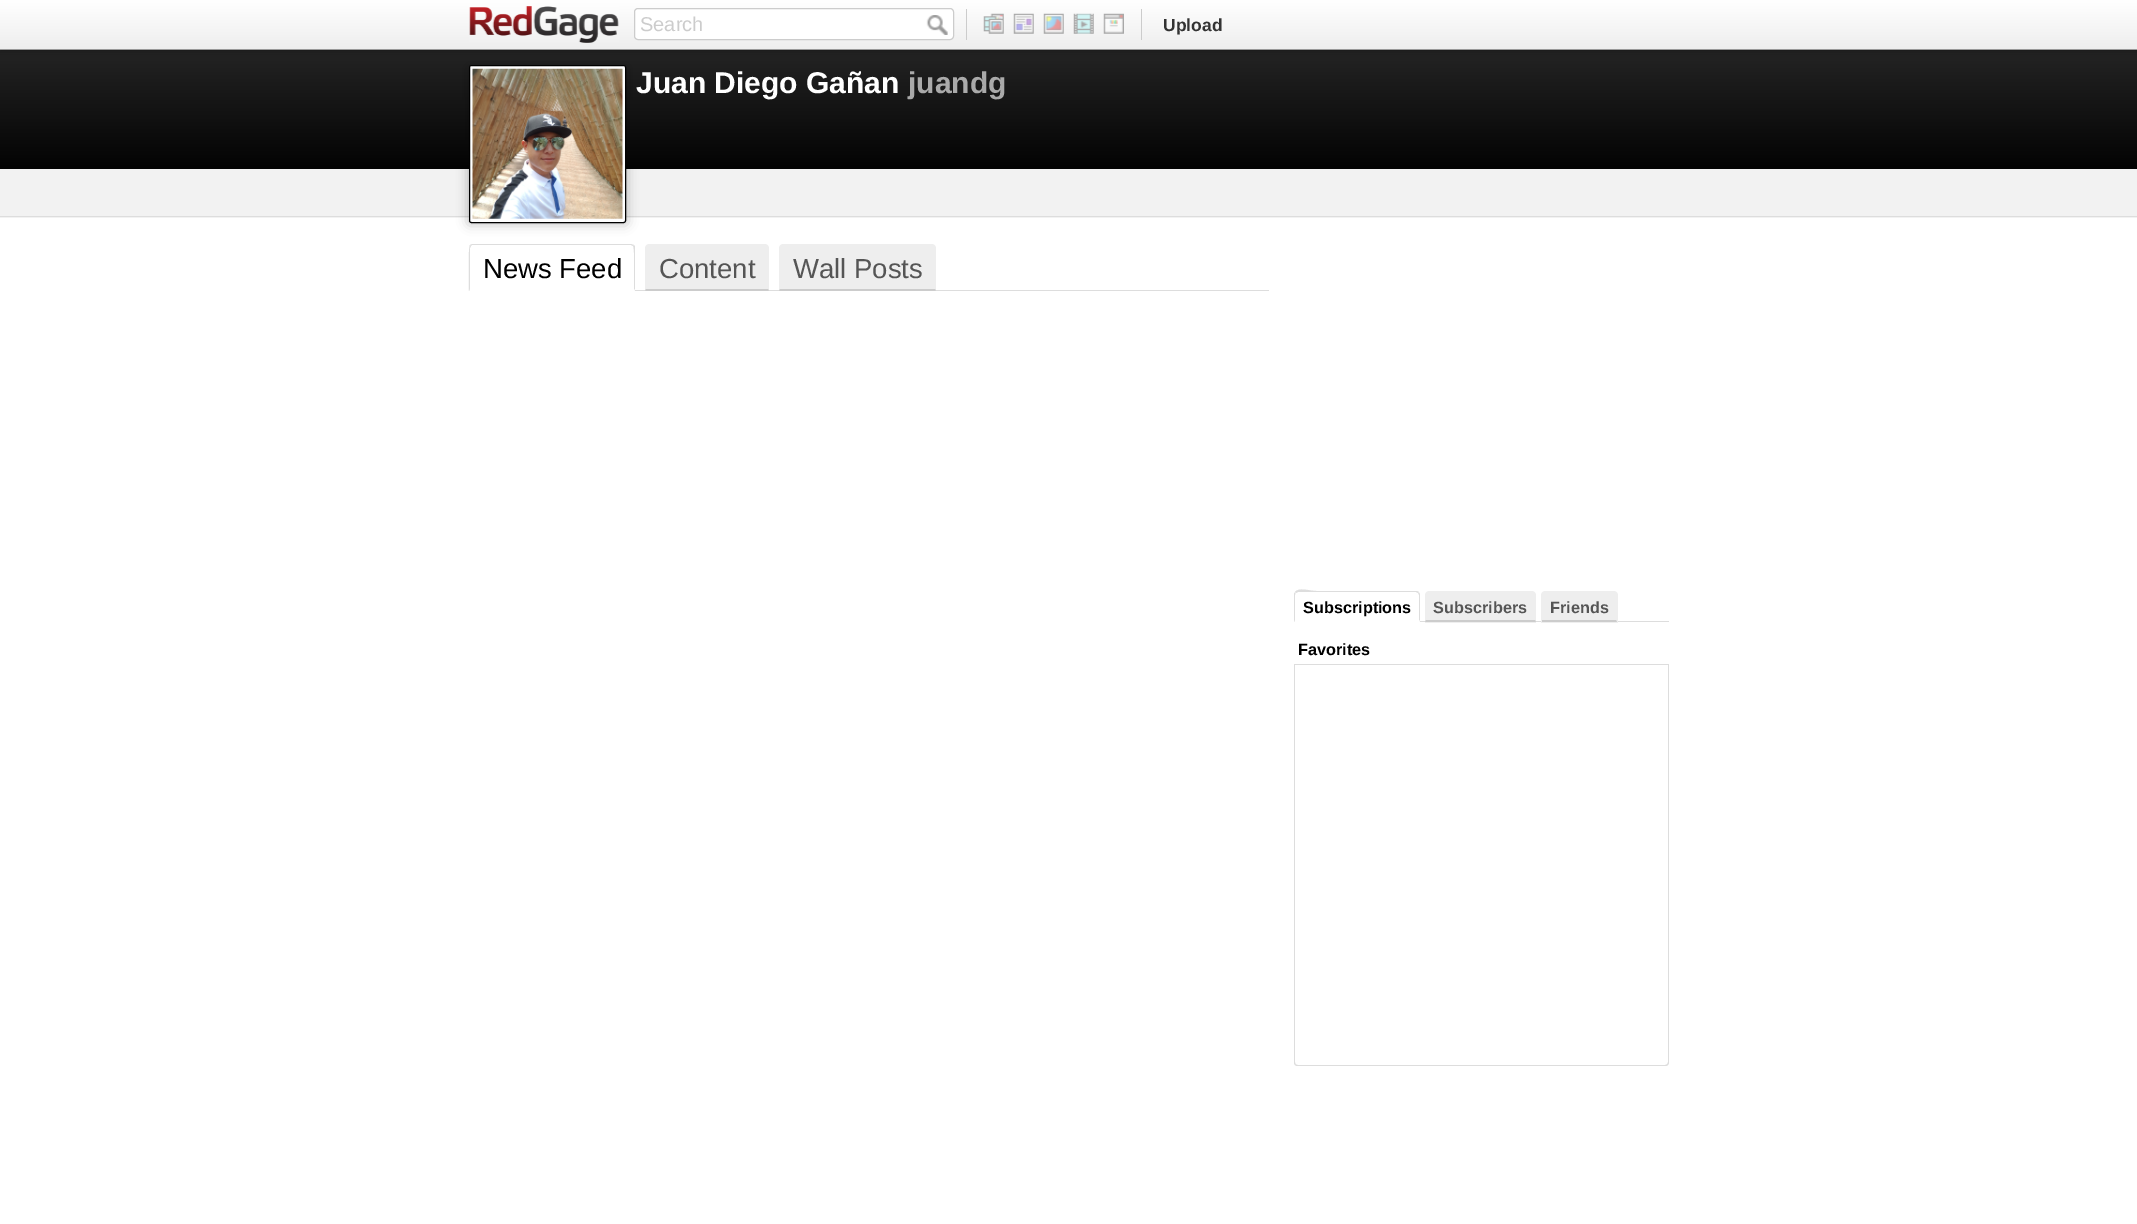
%!PS
<< /PageSize [2137 1224] /PageUsesTransparency true >> setpagedevice
/rgb { dup -16 bitshift 255 div exch dup -8 bitshift 255 and 255 div exch 255 and 255 div setrgbcolor } def
/font { [ exch dup neg 0 0 3 -1 roll 0 0 ] selectfont } def
/text { moveto show } def
/alpha { dup .setfillconstantalpha .setstrokeconstantalpha } def
/roundrect { 5 dict begin { /r /h /w /y /x } { exch def } forall
  x r add y moveto x w add y 2 copy h add r arct x w add y h add x 1 index r arct
  x y h add x y r arct x y 2 copy exch w add exch r arct closepath end } def
/shadow { 12 dict begin { /a /b /q /h /w /y /x } { exch def } forall gsave /was 0 def
  9 -2 -9 { dup b mul 4 div /e exch def 1 sub .425 mul 2.718 exch exp 1 add a .99 .min exch div /now exch def
    1 1 now sub 1 was sub div sub alpha /was now def
    w h .min e 2 mul add 0 gt { x e sub y e sub w e 2 mul add h e 2 mul add
      q e add b .6 mul add w h .min 2 div e add .min 0 .max roundrect fill } if } for grestore end } def
/picture { 5 dict begin { /h /w /y /x /name } { exch def } forall
  gsave x y translate w h scale
  w h 8 [w 0 0 h 0 0] name (r) file false 3 colorimage grestore end } def
0 .pushpdf14devicefilter
0 1224 translate 1 -1 scale
4 setmiterlimit
/s1 { /LiberationSans-Regular 20 font 16#CCCCCC rgb } def
/s2 { /LiberationSans-Bold 17.5 font 16#333333 rgb } def
/s3 { /LiberationSans-Bold 30 font 16#FFFFFF rgb } def
/s4 { /LiberationSans-Bold 30 font 16#AAAAAA rgb } def
/s5 { /LiberationSans-Regular 27.5 font 16#000000 rgb } def
/s6 { /LiberationSans-Regular 27.5 font 16#555555 rgb } def
/s7 { /LiberationSans-Bold 16.25 font 16#000000 rgb } def
/s8 { /LiberationSans-Bold 16.25 font 16#555555 rgb } def
16#FFFFFF rgb
0 0 2137 1224 rectfill
gsave 0 50 moveto 2137 50 lineto 2137 169 lineto 0 169 lineto closepath clip newpath
<< /ShadingType 2 /ColorSpace /DeviceRGB /Coords [1069 50 1069 169] /Extend [true true] /Function << /FunctionType 2 /Domain [0 1] /C0 [0.141 0.141 0.141] /C1 [0.012 0.012 0.012] /N 1 >> >> shfill grestore
16#000000 rgb
0 0 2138 50 0 4 0.4 shadow
gsave 0 0 moveto 2137 0 lineto 2137 49 lineto 0 49 lineto closepath clip newpath
<< /ShadingType 2 /ColorSpace /DeviceRGB /Coords [1069 0 1069 49] /Extend [true true] /Function << /FunctionType 2 /Domain [0 1] /C0 [1 1 1] /C1 [0.933 0.933 0.933] /N 1 >> >> shfill grestore
16#F2F2F2 rgb
0 169 2137 49 rectfill
16#DDDDDD rgb
0 216 2137 1 rectfill
16#000000 rgb
469 68 157 155 0 6 0.3 shadow
16#999999 rgb
0 49 2137 1 rectfill
(pic1.raw) 469 6 150 37 picture
16#FFFFFF rgb
634.5 8.5 319 31 3.5 roundrect gsave fill grestore
16#CCCCCC rgb
stroke
s1
(Search) 640 31 text
(pic2.raw) 926 15 22 20 picture
1141 9 1 31 rectfill
966 9 1 31 rectfill
(pic3.raw) 983 13 21 21 picture
(pic4.raw) 1013 13 21 21 picture
(pic5.raw) 1043 13 21 21 picture
(pic6.raw) 1073 13 21 21 picture
(pic7.raw) 1103 13 21 21 picture
s2
(Upload) 1163 31 text
16#FFFFFF rgb
469.5 65.5 156 157 2 roundrect gsave fill grestore
16#000000 rgb
stroke
(pic8.raw) 472 68 151 151 picture
s3
(Juan Diego Gañan) 636 93 text
s4
(juandg) 908 93 text
16#DDDDDD rgb
469 290 800 1 rectfill
472 244 moveto 470 245 lineto 471 246 lineto 472 245 lineto 631 245 lineto 633 246 lineto 634 245 lineto 631 244 lineto closepath fill
634 245 moveto 635 246 635 247 635 248 curveto 635 291 lineto 634 289 lineto 634 284 635 247 633 246 curveto closepath fill
16#FFFFFF rgb
635 291 moveto 469 291 lineto 470 289 lineto 634 289 lineto closepath fill
16#DDDDDD rgb
470 245 moveto 468 247 469 285 469 291 curveto 470 289 lineto 470 248 lineto 471 246 lineto closepath fill
s5
(News Feed) 483 278 text
16#EEEEEE rgb
649 244 moveto 765 244 lineto 767 244 769 246 769 248 curveto 769 291 lineto 645 291 lineto 645 248 lineto 645 246 647 244 649 244 curveto closepath fill
16#CCCCCC rgb
769 291 moveto 645 291 lineto 646 289 lineto 768 289 lineto closepath fill
s6
(Content) 659 278 text
16#EEEEEE rgb
783 244 moveto 932 244 lineto 934 244 936 246 936 248 curveto 936 291 lineto 779 291 lineto 779 248 lineto 779 246 781 244 783 244 curveto closepath fill
16#CCCCCC rgb
936 291 moveto 779 291 lineto 780 289 lineto 935 289 lineto closepath fill
s6
(Wall Posts) 793 278 text
16#DDDDDD rgb
1294 621 375 1 rectfill
1298 592 moveto 1296 593 lineto 1295 592 lineto 1299 587 1309 591 1317 591 curveto 1417 591 lineto 1419 592 lineto 1418 593 lineto 1416 592 lineto closepath fill
1420 622 moveto 1420 595 lineto 1420 594 1419.5 593 1419 592.5 curveto 1418 593 lineto 1418.5 593.5 1419 594.5 1419 595 curveto 1419 620 lineto closepath fill
16#FFFFFF rgb
1420 622 moveto 1294 622 lineto 1295 620 lineto 1419 620 lineto closepath fill
16#DDDDDD rgb
1294 622 moveto 1295 620 lineto 1295 595 lineto 1295 594.5 1295 594 1295.5 593 curveto 1295 592.5 lineto 1294 593 1294 594 1294 595 curveto closepath fill
s7
(Subscriptions) 1303 613 text
16#EEEEEE rgb
1429 591 moveto 1532 591 lineto 1534 591 1536 593 1536 595 curveto 1536 623 lineto 1425 623 lineto 1425 595 lineto 1425 593 1427 591 1429 591 curveto closepath fill
16#CCCCCC rgb
1536 622 moveto 1535 620 lineto 1426 620 lineto 1425 622 lineto closepath fill
s8
(Subscribers) 1433 613 text
16#EEEEEE rgb
1545 591 moveto 1614 591 lineto 1616 591 1618 593 1618 595 curveto 1618 623 lineto 1541 623 lineto 1541 595 lineto 1541 593 1543 591 1545 591 curveto closepath fill
16#CCCCCC rgb
1617 622 moveto 1542 622 lineto 1542 620 lineto 1616 620 lineto closepath fill
s8
(Friends) 1550 613 text
16#DDDDDD rgb
1294 664 375 1 rectfill
s7
(Favorites) 1298 655 text
16#DDDDDD rgb
1294 665 moveto 1669 665 lineto 1669 1062 lineto 1669 1065 1667 1066 1665 1066 curveto 1298 1066 lineto 1295 1066 1294 1065 1294 1062 curveto closepath 1295 665 moveto 1668 665 lineto 1668 1062 lineto 1668 1064 1666 1065 1665 1065 curveto 1298 1065 lineto 1296 1065 1295 1064 1295 1062 curveto closepath eofill
.poppdf14devicefilter showpage
